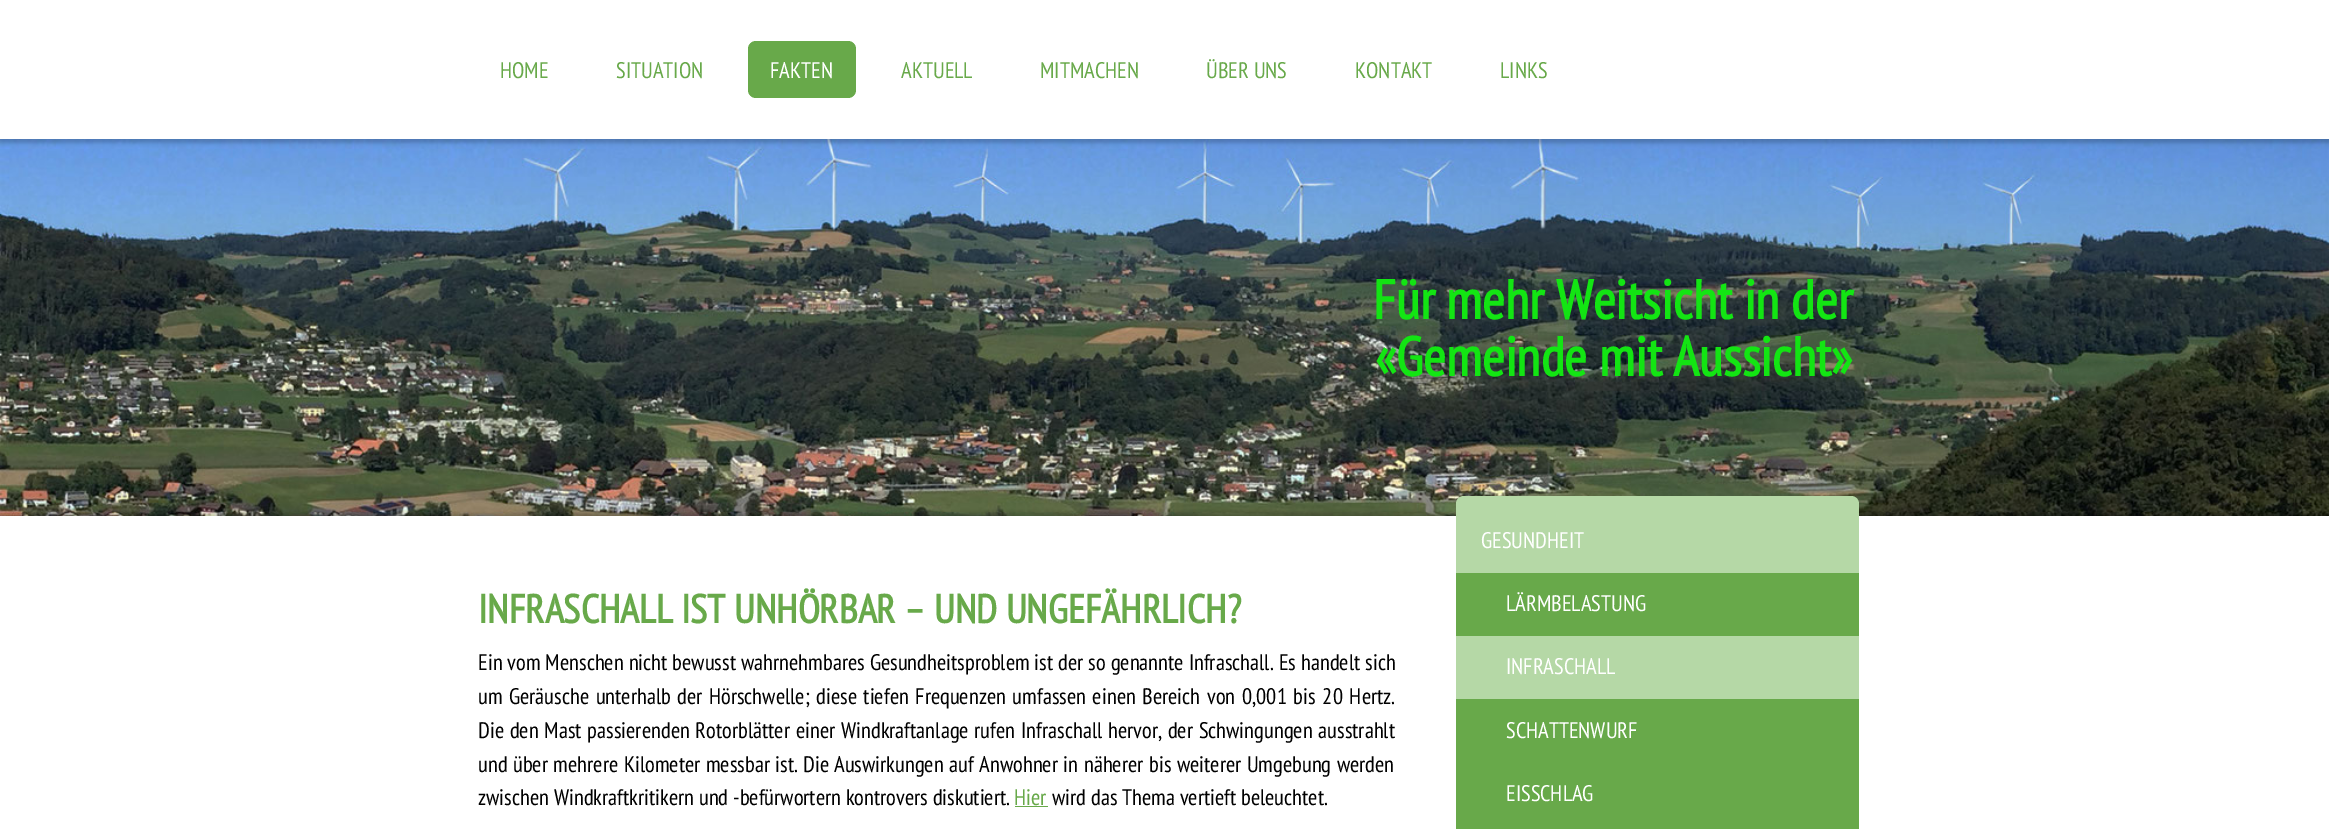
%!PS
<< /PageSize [2329 829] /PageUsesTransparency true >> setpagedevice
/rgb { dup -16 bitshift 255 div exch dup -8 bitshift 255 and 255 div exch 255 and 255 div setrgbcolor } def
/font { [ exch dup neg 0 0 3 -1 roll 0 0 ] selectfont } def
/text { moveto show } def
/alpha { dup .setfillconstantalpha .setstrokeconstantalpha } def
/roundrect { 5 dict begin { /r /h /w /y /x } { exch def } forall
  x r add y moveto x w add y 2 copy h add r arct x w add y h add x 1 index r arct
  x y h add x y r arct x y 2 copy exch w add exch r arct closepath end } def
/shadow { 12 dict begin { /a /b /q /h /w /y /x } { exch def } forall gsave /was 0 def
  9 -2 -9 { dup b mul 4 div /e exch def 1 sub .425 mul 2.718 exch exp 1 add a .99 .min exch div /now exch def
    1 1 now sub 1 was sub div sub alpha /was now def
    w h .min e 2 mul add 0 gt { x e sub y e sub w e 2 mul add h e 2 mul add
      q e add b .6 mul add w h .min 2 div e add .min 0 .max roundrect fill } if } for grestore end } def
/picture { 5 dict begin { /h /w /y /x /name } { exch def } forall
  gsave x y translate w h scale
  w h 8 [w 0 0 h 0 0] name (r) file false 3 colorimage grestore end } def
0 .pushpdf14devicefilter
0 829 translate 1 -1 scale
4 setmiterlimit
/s1 { /PTSansNarrow-Regular 22.5 font 16#68A94A rgb } def
/s2 { /PTSansNarrow-Regular 22.5 font 16#FFFFFF rgb } def
/s3 { /PTSansNarrow-Bold 55 font 16#13E513 rgb } def
/s4 { /PTSansNarrow-Bold 40 font 16#68A94A rgb } def
/s5 { /PTSansNarrow-Regular 22.5 font 16#000000 rgb } def
16#FFFFFF rgb
0 0 2329 829 rectfill
(pic1.raw) 0 139 2329 377 picture
16#000000 rgb
-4 -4 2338 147 0 2 0.2 shadow
16#FFFFFF rgb
0 0 2329 139 rectfill
s1
(HOME) 500 78 text
(SITUATION) 616 78 text
748 41 108 57 8 roundrect fill
s2
(FAKTEN) 770 78 text
s1
(AKTUELL) 901 78 text
(MITMACHEN) 1040 78 text
(ÜBER UNS) 1206 78 text
(KONTAKT) 1355 78 text
(LINKS) 1500 78 text
s3
(Für mehr Weitsicht in der) 1373 319 text
(«Gemeinde mit Aussicht») 1375 376 text
16#000000 rgb
-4 513 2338 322 0 2 0.2 shadow
16#FFFFFF rgb
0 516 2329 313 rectfill
s4
(INFRASCHALL IST UNHÖRBAR – UND UNGEFÄHRLICH?) 478 623 text
/PTSansNarrow-Regular 22.5 font
16#000000 rgb
478 670 moveto 0.2 0 32 (Ein vom Menschen nicht bewusst wahrnehmbares Gesundheitsproblem ist der so genannte Infraschall. Es handelt sich) widthshow
478 704 moveto 1.75 0 32 (um Geräusche unterhalb der Hörschwelle; diese tiefen Frequenzen umfassen einen) widthshow
1142 704 moveto 2 0 32 (Bereich von 0,001 bis 20 Hertz.) widthshow
478 738 moveto 1 0 32 (Die den Mast passierenden Rotorblätter einer Windkraftanlage rufen Infraschall hervor, der Schwingungen ausstrahlt) widthshow
478 772 moveto 0.75 0 32 (und über mehrere Kilometer messbar ist. Die) widthshow
834 772 moveto 0.75 0 32 (Auswirkungen auf Anwohner in näherer bis weiterer Umgebung werden) widthshow
(zwischen Windkraftkritikern und -befürwortern kontrovers diskutiert.) 478 805 text
s1
(Hier) 1014 805 text
1015 806 33 1 rectfill
s5
(wird das Thema vertieft beleuchtet.) 1052 805 text
16#B5D8A6 rgb
1464 496 moveto 1851 496 lineto 1855.5 496 1859 499.5 1859 504 curveto 1859 573 lineto 1456 573 lineto 1456 504 lineto 1456 499.5 1459.5 496 1464 496 curveto closepath fill
s2
(GESUNDHEIT) 1481 548 text
16#68A94A rgb
1456 573 403 63 rectfill
s2
(LÄRMBELASTUNG) 1506 611 text
16#B5D8A6 rgb
1456 636 403 63 rectfill
s2
(INFRASCHALL) 1506 674 text
16#68A94A rgb
1456 699 403 130 rectfill
s2
(SCHATTENWURF) 1506 738 text
(EISSCHLAG) 1506 801 text
.poppdf14devicefilter showpage
